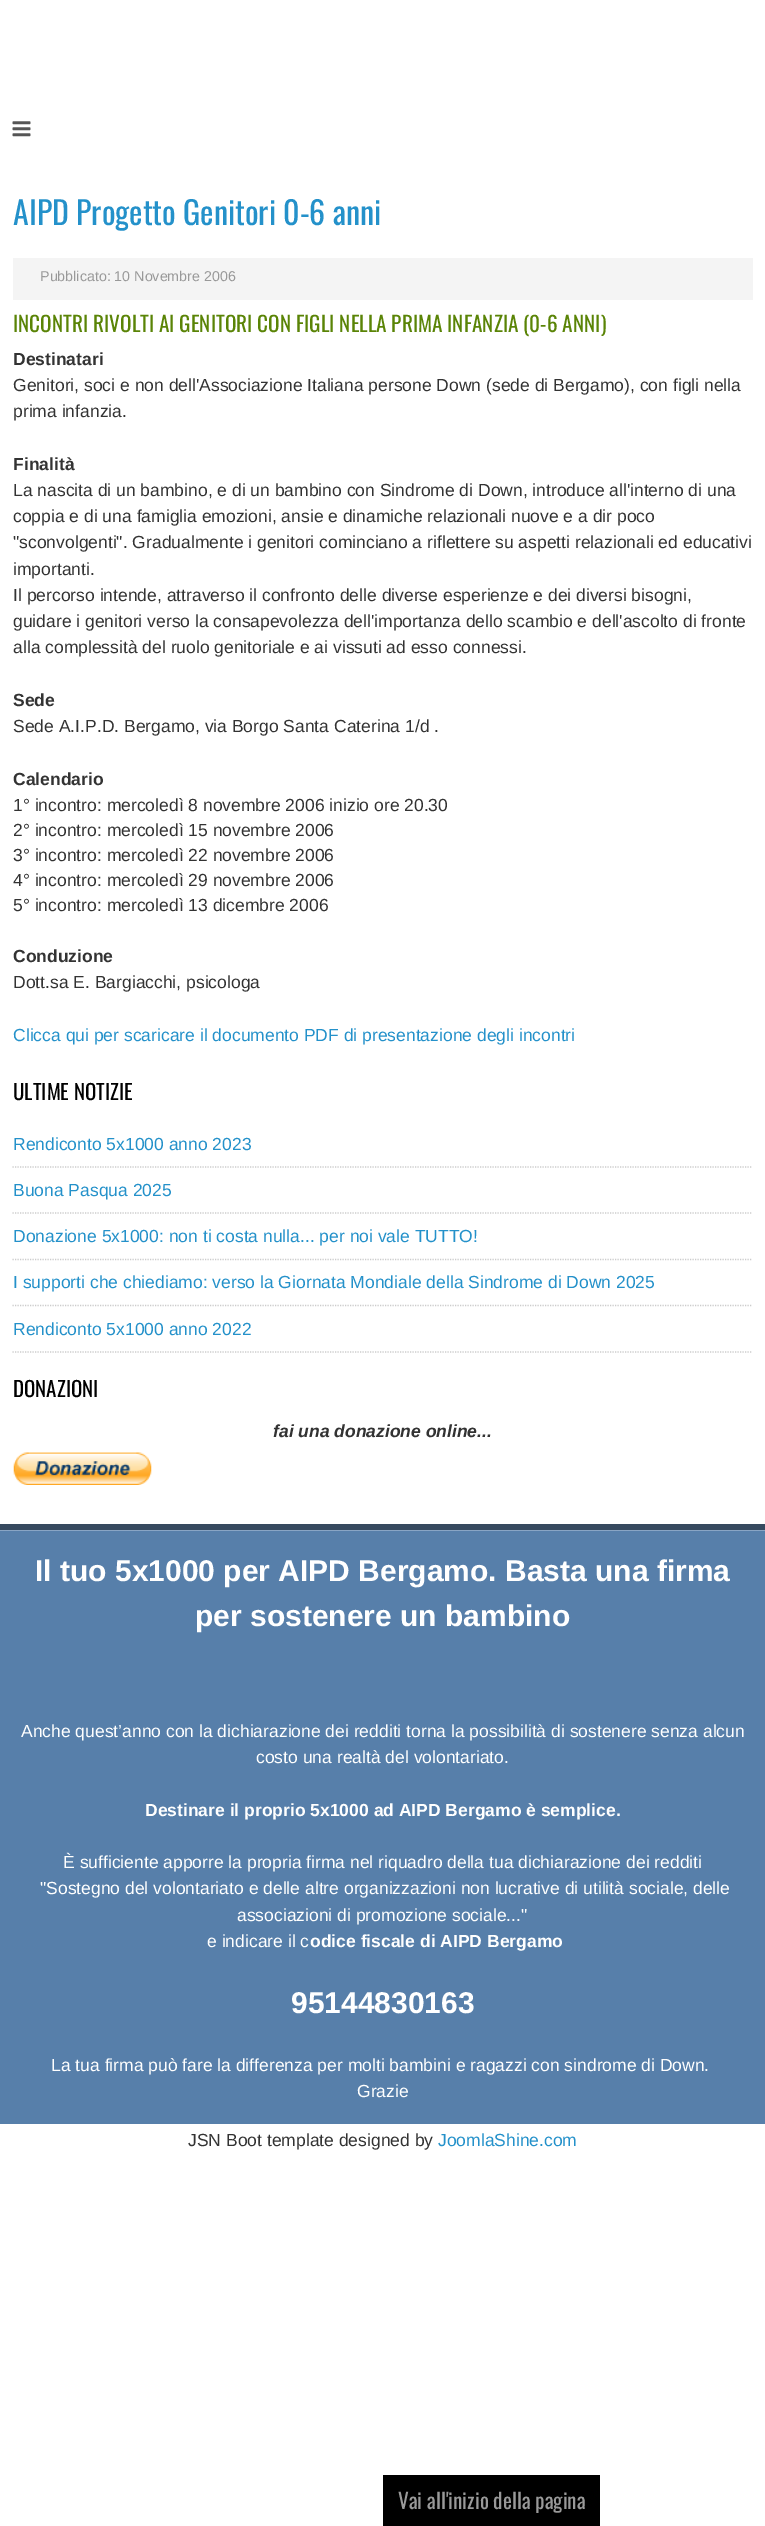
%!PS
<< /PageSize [765 2526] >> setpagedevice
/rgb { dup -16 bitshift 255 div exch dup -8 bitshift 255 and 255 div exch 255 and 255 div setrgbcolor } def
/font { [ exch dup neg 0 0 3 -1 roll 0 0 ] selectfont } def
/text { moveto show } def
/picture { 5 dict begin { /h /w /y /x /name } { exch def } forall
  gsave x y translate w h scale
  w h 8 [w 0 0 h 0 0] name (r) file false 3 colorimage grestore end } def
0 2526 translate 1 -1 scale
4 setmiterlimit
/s1 { /Oswald-Regular 31.9 font 16#2491CA rgb } def
/s2 { /LiberationSans-Regular 14.25 font 16#999999 rgb } def
/s3 { /Oswald-Regular 21.25 font 16#5A8406 rgb } def
/s4 { /LiberationSans-Bold 17.5 font 16#333333 rgb } def
/s5 { /LiberationSans-Regular 17.5 font 16#333333 rgb } def
/s6 { /LiberationSans-Regular 17.5 font 16#2491CA rgb } def
/s7 { /Oswald-Regular 21 font 16#000000 rgb } def
/s8 { /LiberationSans-BoldItalic 17.5 font 16#333333 rgb } def
/s9 { /LiberationSans-Bold 30 font 16#FFFFFF rgb } def
/s10 { /LiberationSans-Regular 17.5 font 16#FFFFFF rgb } def
/s11 { /LiberationSans-Bold 17.5 font 16#FFFFFF rgb } def
/s12 { /Oswald-Regular 21.25 font 16#999999 rgb } def
16#FFFFFF rgb
0 0 765 2526 rectfill
(pic1.raw) 12 121 19 16 picture
s1
(AIPD Progetto Genitori 0-6 anni) 13 225 text
16#F4F4F4 rgb
13 258 740 42 rectfill
s2
(Pubblicato: 10 Novembre 2006) 40 281 text
s3
(INCONTRI RIVOLTI AI GENITORI CON FIGLI NELLA PRIMA INFANZIA \(0-6 ANNI\)) 13 332 text
s4
(Destinatari) 13 365 text
s5
(Genitori, soci e non dell'Associazione Italiana persone Down \(sede di Bergamo\), con figli nella) 13 391 text
(prima infanzia.) 13 417 text
s4
(Finalità) 13 470 text
s5
(La nascita di un bambino, e di un bambino con Sindrome di Down, introduce all'interno di una) 13 496 text
(coppia e di una famiglia emozioni, ansie e dinamiche relazionali nuove e a dir poco) 13 522 text
("sconvolgenti". Gradualmente i genitori cominciano a riflettere su aspetti relazionali ed educativi) 13 548 text
(importanti.) 13 575 text
(Il percorso intende, attraverso il confronto delle diverse esperienze e dei diversi bisogni,) 13 601 text
(guidare i genitori verso la consapevolezza dell'importanza dello scambio e dell'ascolto di fronte) 13 627 text
(alla complessità del ruolo genitoriale e ai vissuti ad esso connessi.) 13 653 text
s4
(Sede) 13 706 text
s5
(Sede A.I.P.D. Bergamo, via Borgo Santa Caterina 1/d .) 13 732 text
s4
(Calendario) 13 785 text
s5
(1° incontro: mercoledì 8 novembre 2006 inizio ore 20.30) 13 811 text
(2° incontro: mercoledì 15 novembre 2006) 13 836 text
(3° incontro: mercoledì 22 novembre 2006) 13 861 text
(4° incontro: mercoledì 29 novembre 2006) 13 886 text
(5° incontro: mercoledì 13 dicembre 2006) 13 911 text
s4
(Conduzione) 13 962 text
s5
(Dott.sa E. Bargiacchi, psicologa) 13 988 text
s6
(Clicca qui per scaricare il documento PDF di presentazione degli incontri) 13 1041 text
s7
(ULTIME NOTIZIE) 13 1100 text
16#CCCCCC rgb
1.2 setlinewidth
[1.25 1.25] 0 setdash
12.5 1167 moveto 752.5 1167 lineto stroke
s6
(Rendiconto 5x1000 anno 2023) 13 1150 text
16#CCCCCC rgb
12.5 1213 moveto 752.5 1213 lineto stroke
s6
(Buona Pasqua 2025) 13 1196 text
16#CCCCCC rgb
12.5 1259.5 moveto 752.5 1259.5 lineto stroke
s6
(Donazione 5x1000: non ti costa nulla... per noi vale TUTTO!) 13 1242 text
16#CCCCCC rgb
12.5 1305.5 moveto 752.5 1305.5 lineto stroke
s6
(I supporti che chiediamo: verso la Giornata Mondiale della Sindrome di Down 2025) 13 1288 text
16#CCCCCC rgb
12.5 1352 moveto 752.5 1352 lineto stroke
s6
(Rendiconto 5x1000 anno 2022) 13 1335 text
s7
(DONAZIONI) 13 1397 text
s8
(fai una donazione online...) 273 1437 text
(pic2.raw) 13 1452 139 33 picture
16#577FAA rgb
0 1531 765 593 rectfill
16#89A5C4 rgb
0 1530 765 1 rectfill
16#374A5F rgb
0 1524 765 6 rectfill
s9
(Il tuo 5x1000 per AIPD Bergamo. Basta una firma) 35 1581 text
(per sostenere un bambino) 195 1626 text
s10
(Anche quest’anno con la dichiarazione dei redditi torna la possibilità di sostenere senza alcun) 21 1737 text
(costo una realtà del volontariato.) 256 1763 text
s11
(Destinare il proprio 5x1000 ad AIPD Bergamo è semplice.) 145 1816 text
s10
(È sufficiente apporre la propria firma nel riquadro della tua dichiarazione dei redditi) 63 1868 text
("Sostegno del volontariato e delle altre organizzazioni non lucrative di utilità sociale, delle) 40 1894 text
(associazioni di promozione sociale...") 237 1921 text
(e indicare il c) 207 1947 text
s11
(odice fiscale di AIPD Bergamo) 310 1947 text
s9
(95144830163) 291 2013 text
s10
(La tua firma può fare la differenza per molti bambini e ragazzi con sindrome di Down.) 51 2071 text
(Grazie) 357 2097 text
s5
(JSN Boot template designed by) 188 2146 text
s6
(JoomlaShine.com) 438 2146 text
16#000000 rgb
383 2475 217 51 rectfill
s12
(Vai all'inizio della pagina) 398 2509 text
showpage
